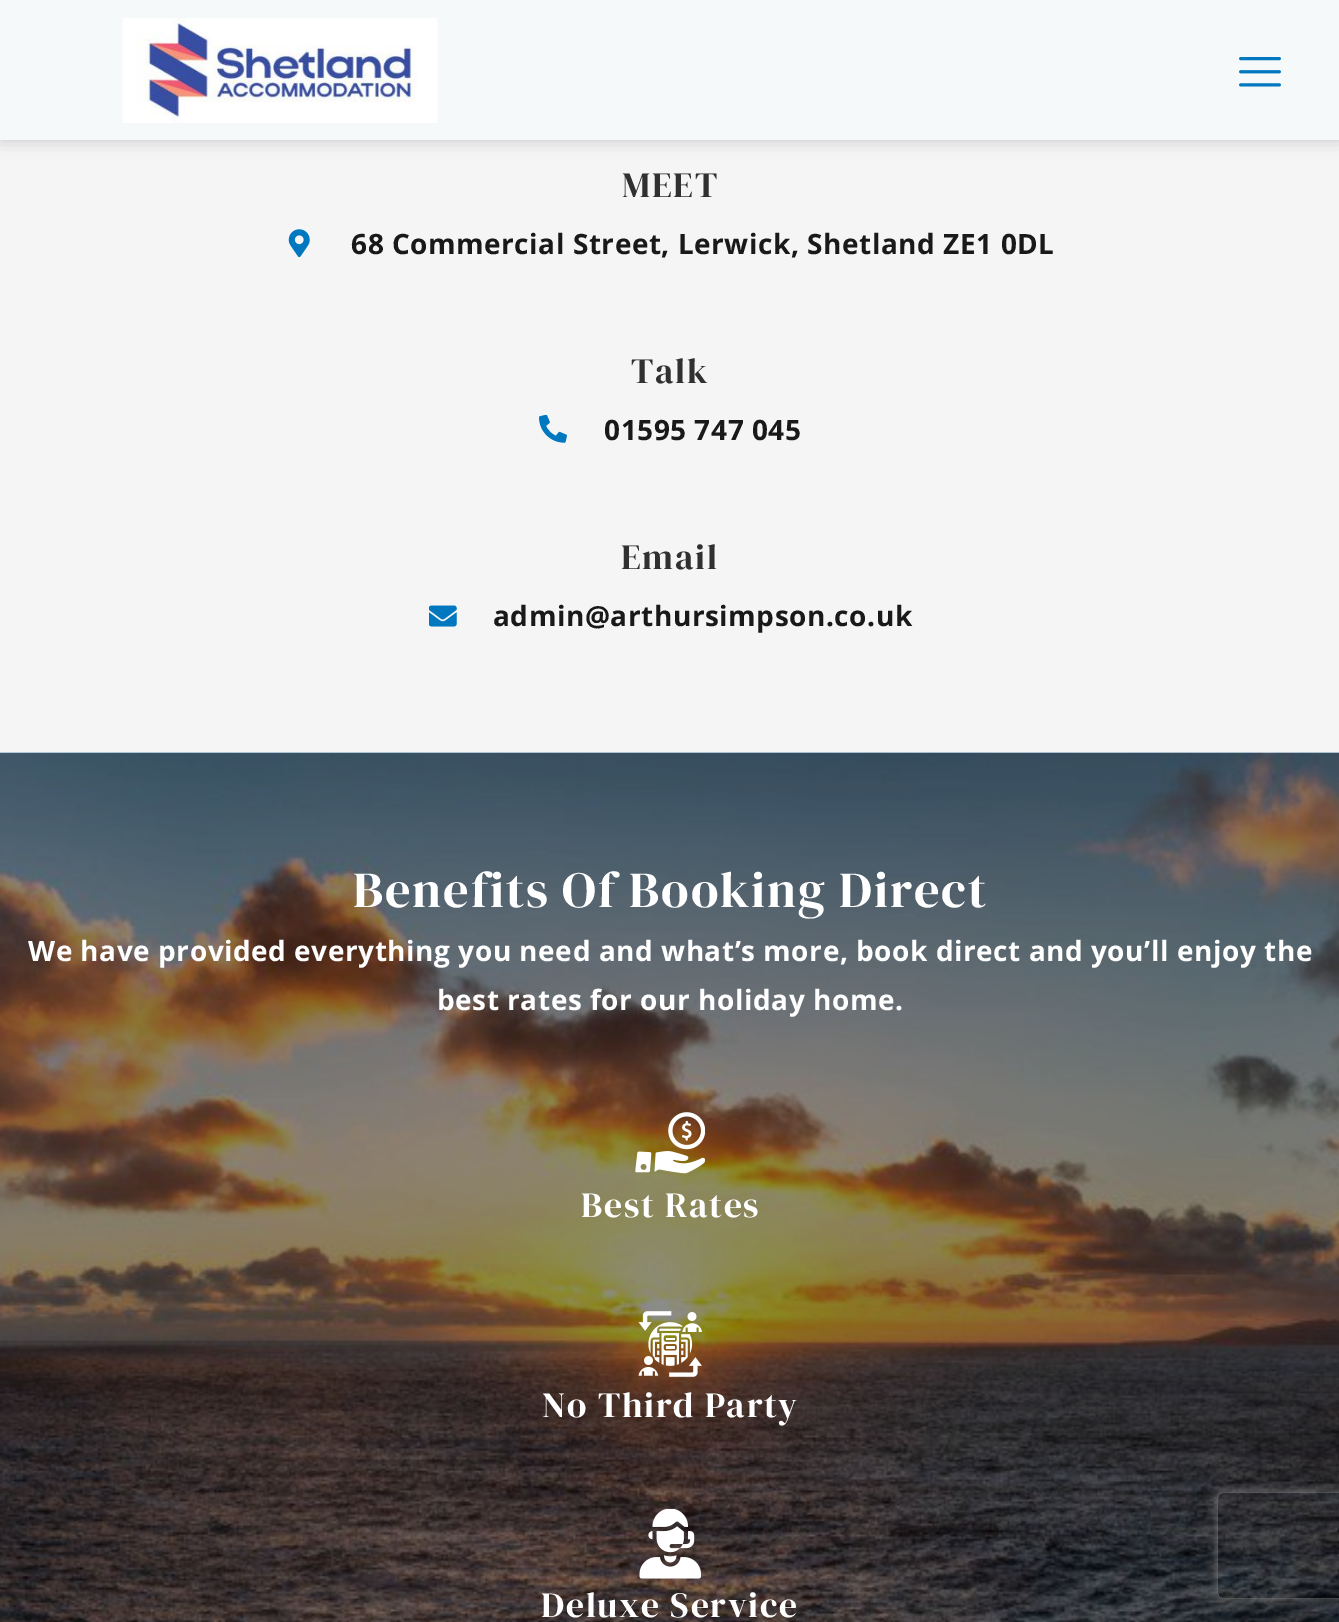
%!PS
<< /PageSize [1339 1622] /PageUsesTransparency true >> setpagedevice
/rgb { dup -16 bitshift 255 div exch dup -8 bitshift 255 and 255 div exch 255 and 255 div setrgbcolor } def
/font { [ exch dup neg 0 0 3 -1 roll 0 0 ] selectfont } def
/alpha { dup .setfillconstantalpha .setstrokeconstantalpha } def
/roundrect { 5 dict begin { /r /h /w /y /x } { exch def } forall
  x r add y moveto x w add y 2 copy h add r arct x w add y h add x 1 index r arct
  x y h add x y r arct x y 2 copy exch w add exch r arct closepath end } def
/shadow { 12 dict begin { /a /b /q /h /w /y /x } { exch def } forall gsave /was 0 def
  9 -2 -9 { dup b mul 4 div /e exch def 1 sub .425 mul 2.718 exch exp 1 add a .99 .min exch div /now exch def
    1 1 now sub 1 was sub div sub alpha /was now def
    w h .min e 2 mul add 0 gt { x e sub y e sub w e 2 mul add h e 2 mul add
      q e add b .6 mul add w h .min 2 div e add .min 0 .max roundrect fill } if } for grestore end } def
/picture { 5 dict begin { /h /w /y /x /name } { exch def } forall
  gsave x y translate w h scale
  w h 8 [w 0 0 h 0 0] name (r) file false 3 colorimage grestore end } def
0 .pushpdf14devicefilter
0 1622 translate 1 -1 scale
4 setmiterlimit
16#F5F5F5 rgb
0 0 1339 1622 rectfill
16#000000 rgb
0 0 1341 140 0 9 0.18 shadow
16#F5F9F9 rgb
0 0 1339 140 rectfill
(pic1.raw) 122 18 316 105 picture
(pic2.raw) 1239 57 42 30 picture
/DMSerifDisplay-Regular 35.5 font
16#303030 rgb
622 197 moveto 1.75 0 (MEET) ashow
(pic3.raw) 288 229 22 28 picture
/OpenSans-Bold 28 font
16#191919 rgb
351 254 moveto 0.53 0 (68 Commercial Street, Lerwick, Shetland ZE1 0DL) ashow
/DMSerifDisplay-Regular 35.5 font
16#303030 rgb
631 383 moveto 1.75 0 (Talk) ashow
(pic4.raw) 539 415 28 28 picture
/OpenSans-Bold 28 font
16#191919 rgb
604 440 moveto 0.53 0 (01595 747 045) ashow
/DMSerifDisplay-Regular 35.5 font
16#303030 rgb
621 569 moveto 1.75 0 (Email) ashow
(pic5.raw) 429 605 28 22 picture
/OpenSans-Bold 28 font
16#191919 rgb
493 626 moveto 0.53 0 (admin@arthursimpson.co.uk) ashow
(pic6.raw) 0 752 1339 870 picture
gsave
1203 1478 moveto 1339 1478 lineto 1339 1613 lineto 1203 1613 lineto closepath 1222 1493 moveto 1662 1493 lineto 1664 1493 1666 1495 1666 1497 curveto 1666 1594 lineto 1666 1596 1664 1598 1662 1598 curveto 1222 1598 lineto 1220 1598 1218 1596 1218 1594 curveto 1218 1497 lineto 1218 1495 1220 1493 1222 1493 curveto closepath eoclip newpath
16#808080 rgb
1218 1493 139 105 4 4.5 1 shadow
grestore
/DMSerifDisplay-Regular 50.5 font
16#FFFFFF rgb
353 907 moveto 1.75 0 (Benefits Of Booking Direct) ashow
/OpenSans-Bold 28 font
28 961 moveto 0.53 0 (We have provided everything you need and what’s more, book direct and you’ll enjoy the) ashow
437 1010 moveto 0.53 0 (best rates for our holiday home.) ashow
(pic7.raw) 635 1112 70 62 picture
/DMSerifDisplay-Regular 35.5 font
581 1217 moveto 1.75 0 (Best Rates) ashow
(pic8.raw) 638 1311 64 66 picture
542 1417 moveto 1.75 0 (No Third Party) ashow
(pic9.raw) 639 1509 62 70 picture
541 1617 moveto 1.75 0 (Deluxe Service) ashow
.poppdf14devicefilter showpage
